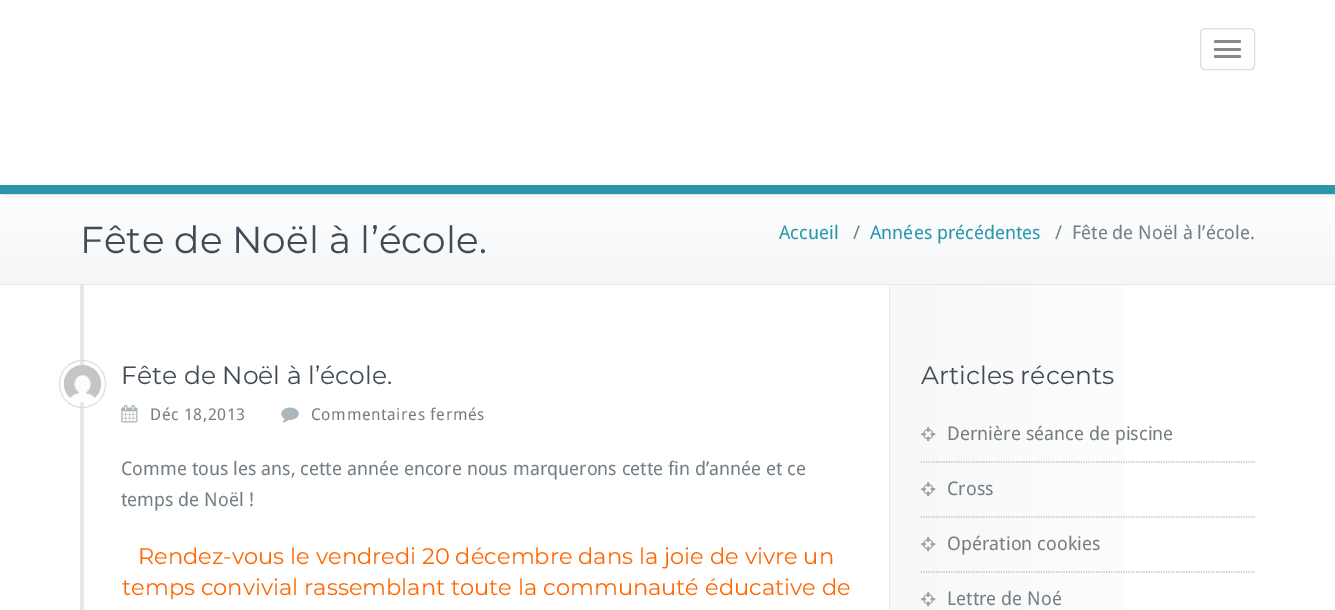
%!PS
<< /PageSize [1335 610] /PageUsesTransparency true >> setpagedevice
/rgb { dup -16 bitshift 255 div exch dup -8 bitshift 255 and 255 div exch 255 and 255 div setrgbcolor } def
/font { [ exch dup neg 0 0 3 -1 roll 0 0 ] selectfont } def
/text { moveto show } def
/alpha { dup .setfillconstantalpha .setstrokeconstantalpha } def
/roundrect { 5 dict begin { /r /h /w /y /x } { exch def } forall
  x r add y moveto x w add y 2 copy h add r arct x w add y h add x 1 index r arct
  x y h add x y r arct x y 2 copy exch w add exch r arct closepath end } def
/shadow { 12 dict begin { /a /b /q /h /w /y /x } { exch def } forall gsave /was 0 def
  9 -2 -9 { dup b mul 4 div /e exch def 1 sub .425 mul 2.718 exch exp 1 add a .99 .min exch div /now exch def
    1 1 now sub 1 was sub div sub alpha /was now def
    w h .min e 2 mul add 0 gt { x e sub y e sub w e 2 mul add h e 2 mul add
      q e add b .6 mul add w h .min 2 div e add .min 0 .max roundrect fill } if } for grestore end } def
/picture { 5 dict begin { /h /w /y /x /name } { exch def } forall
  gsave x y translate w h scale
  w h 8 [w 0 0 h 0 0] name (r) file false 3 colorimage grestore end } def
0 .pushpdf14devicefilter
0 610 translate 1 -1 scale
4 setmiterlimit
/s1 { /Montserrat-Regular 37.5 font 16#404B56 rgb } def
/s2 { /DroidSans-Regular 18.75 font 16#2997AB rgb } def
/s3 { /DroidSans-Regular 18.75 font 16#737F85 rgb } def
/s4 { /Montserrat-Regular 25 font 16#404B56 rgb } def
/s5 { /Montserrat-Regular 22.5 font 16#FF6600 rgb } def
16#FFFFFF rgb
0 0 1335 610 rectfill
16#E4E8EA rgb
0 194 1335 1 rectfill
16#000000 rgb
5 5 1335 194 0 2 0.04 shadow
16#FFFFFF rgb
4 4 1331 181 rectfill
16#2997AB rgb
0 185 1335 9 rectfill
16#DDDDDD rgb
1200.5 28.5 54 41 4.5 roundrect stroke
16#888888 rgb
1214 40 27 3 1.5 roundrect fill
1214 48 27 3 1.5 roundrect fill
1214 55 27 3 1.5 roundrect fill
gsave 0 208 moveto 1335 208 lineto 1335 284 lineto 0 284 lineto closepath clip newpath
<< /ShadingType 2 /ColorSpace /DeviceRGB /Coords [668 195 668 284] /Extend [true true] /Function << /FunctionType 2 /Domain [0 1] /C0 [0.996 0.996 1] /C1 [0.957 0.965 0.969] /N 1 >> >> shfill grestore
16#E4E8EA rgb
0 284 1335 1 rectfill
s1
(Fête de Noël à l’école.) 80 253 text
s2
(Accueil) 779 239 text
s3
(/) 853 239 text
s2
(Années précédentes) 870 239 text
s3
(/) 1055 239 text
(Fête de Noël à l’école.) 1072 239 text
16#E4E8EA rgb
80 285 4 325 rectfill
16#DDDDDD rgb
59.5 360.5 46 47 23 roundrect stroke
(pic1.raw) 64 365 37 38 picture
s4
(Fête de Noël à l’école.) 121 384 text
(pic2.raw) 121 405 17 18 picture
/DroidSans-Regular 16.25 font
16#737F85 rgb
150 420 moveto 0.6 0 (Déc 18,2013) ashow
(pic3.raw) 281 407 18 16 picture
311 420 moveto 0.6 0 (Commentaires fermés) ashow
s3
(Comme tous les ans, cette année encore nous marquerons cette fin d’année et ce) 121 475 text
(temps de Noël !) 121 506 text
s5
(Rendez-vous le vendredi 20 décembre dans la joie de vivre un) 138 564 text
(temps convivial rassemblant toute la communauté éducative de) 122 595 text
gsave 890 285 moveto 1125 285 lineto 1125 610 lineto 890 610 lineto closepath clip newpath
<< /ShadingType 2 /ColorSpace /DeviceRGB /Coords [890 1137 1255 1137] /Extend [true true] /Function << /FunctionType 2 /Domain [0 1] /C0 [0.973 0.973 0.973] /C1 [1 1 1] /N 1 >> >> shfill grestore
16#E4E8EA rgb
889 285 1 325 rectfill
s4
(Articles récents) 921 384 text
16#B4BFC5 rgb
1.2 setlinewidth
[1.25 1.25] 0 setdash
921 462 moveto 1255 462 lineto stroke
(pic4.raw) 921 427 15 15 picture
s3
(Dernière séance de piscine) 947 440 text
16#B4BFC5 rgb
921 517 moveto 1255 517 lineto stroke
(pic4.raw) 921 482 15 15 picture
s3
(Cross) 947 495 text
16#B4BFC5 rgb
921 572 moveto 1255 572 lineto stroke
(pic4.raw) 921 537 15 15 picture
s3
(Opération cookies) 947 550 text
(pic4.raw) 921 592 15 15 picture
(Lettre de Noé) 947 605 text
.poppdf14devicefilter showpage
